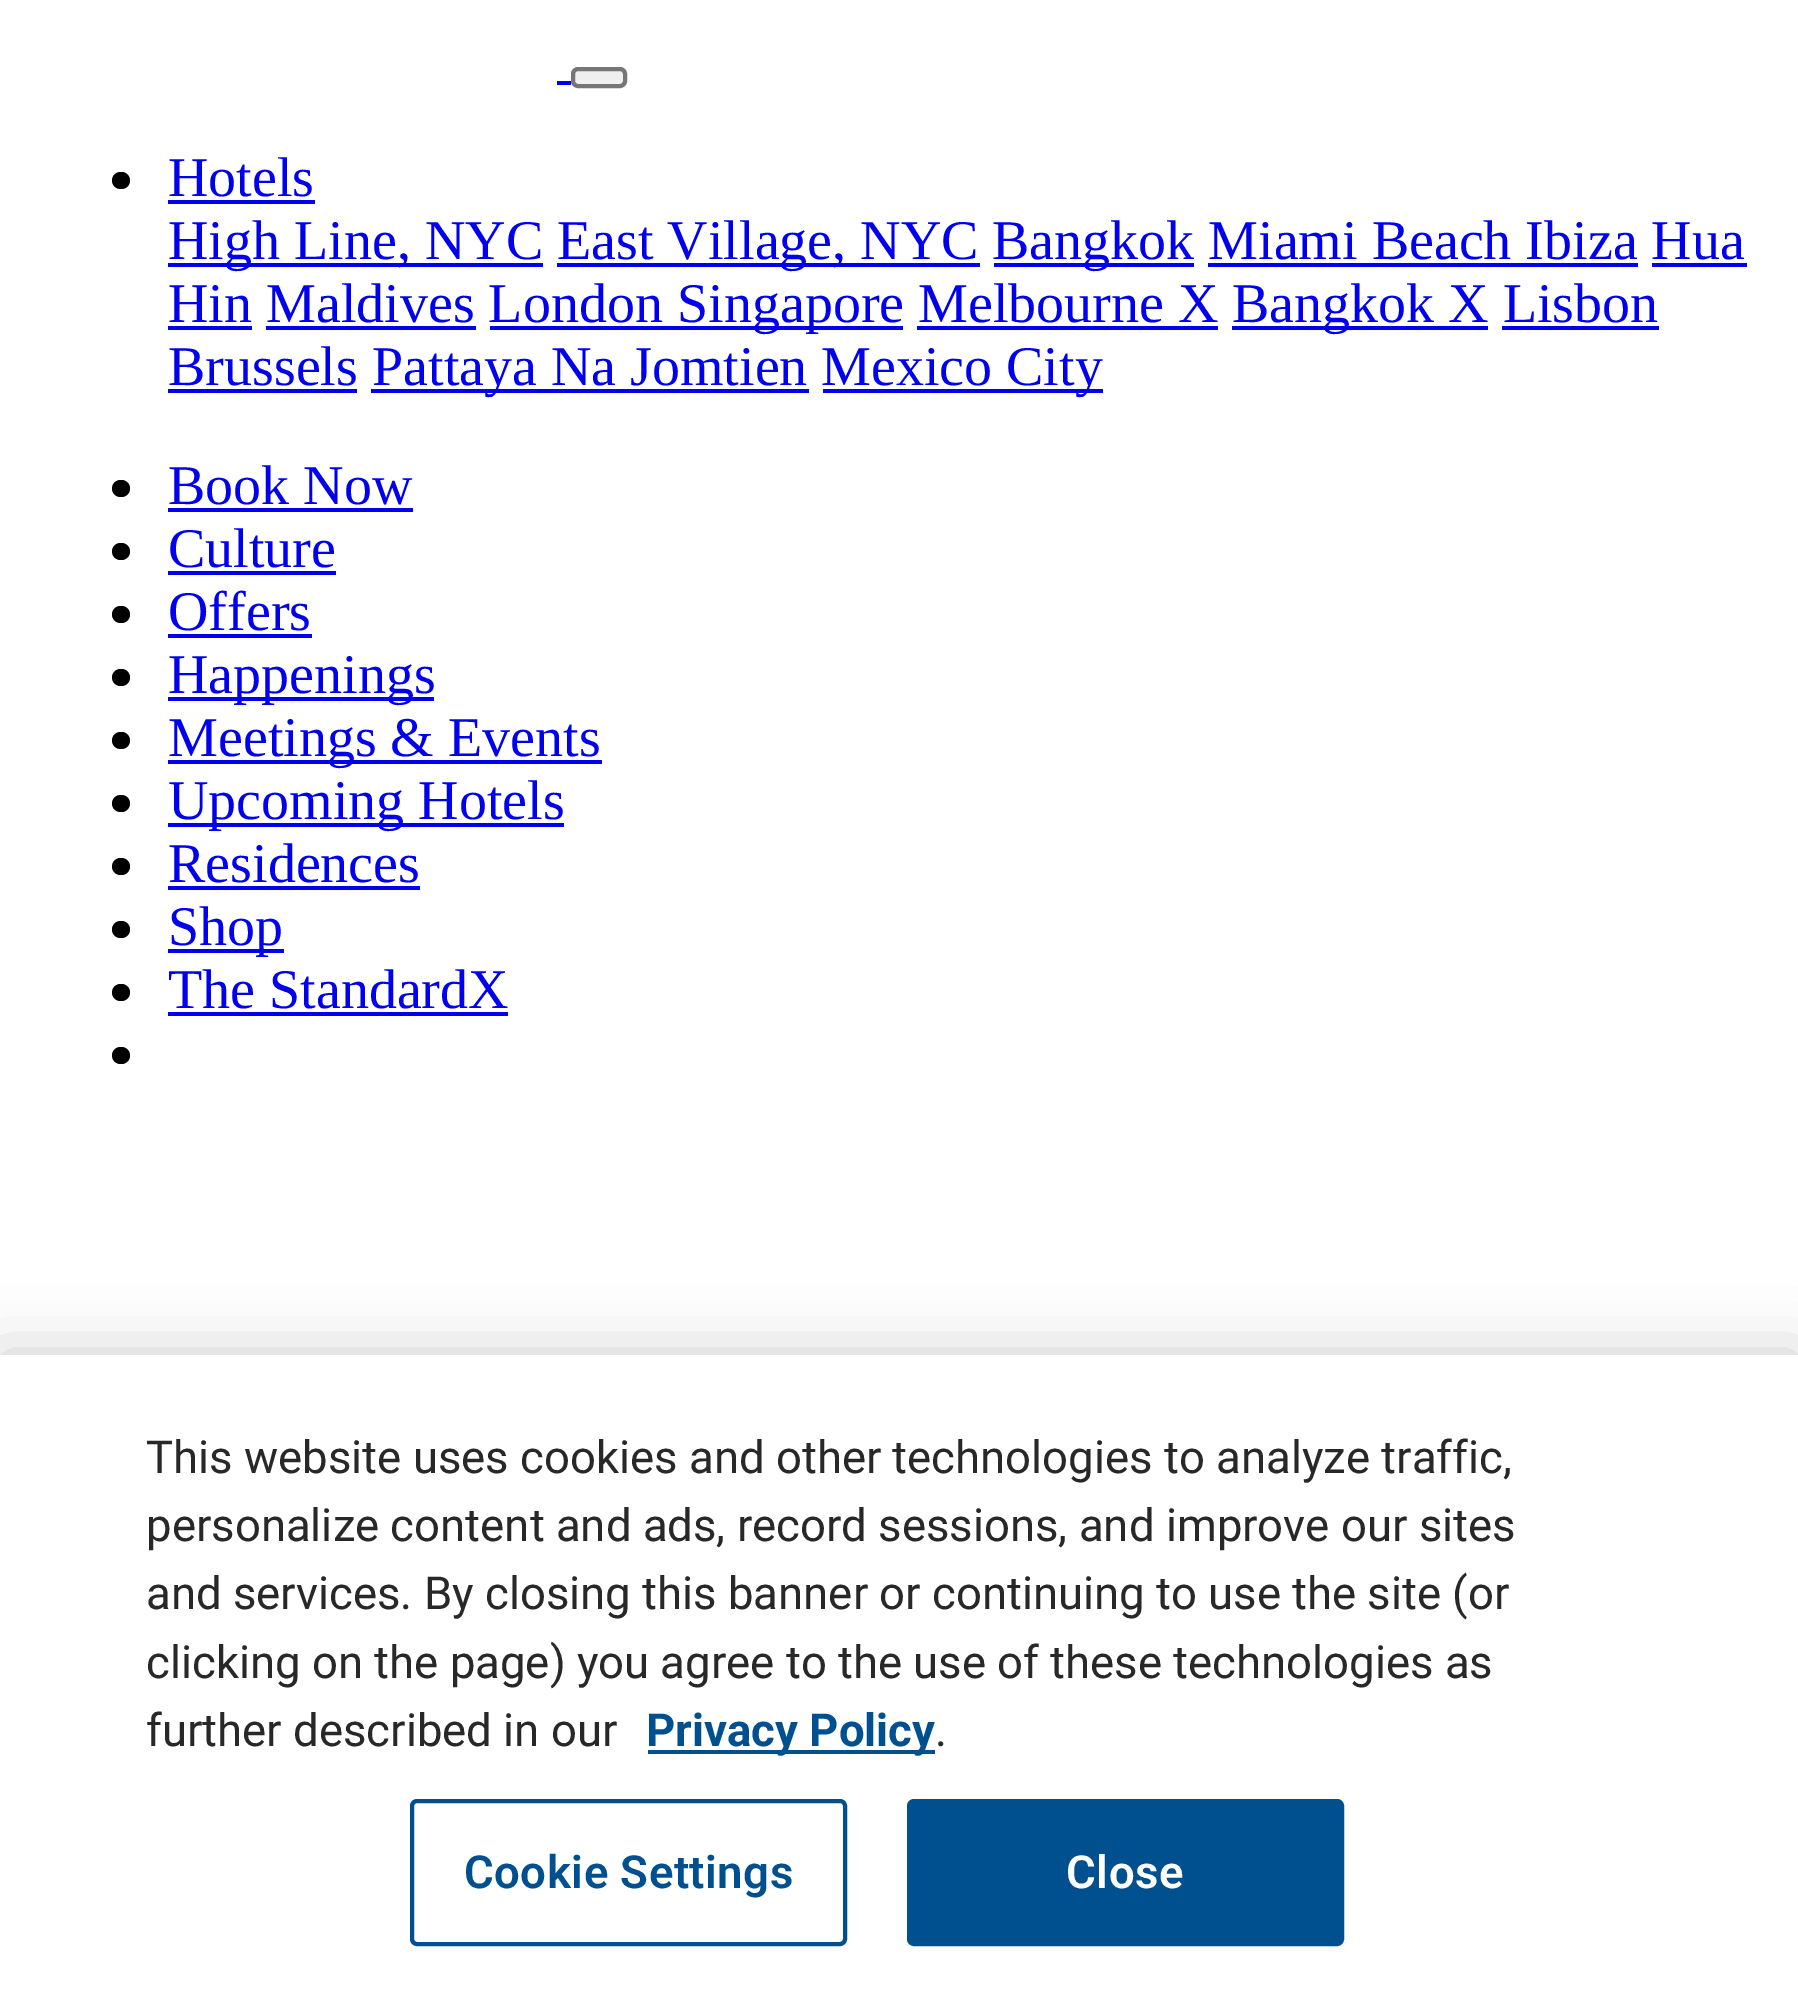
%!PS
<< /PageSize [1798 2001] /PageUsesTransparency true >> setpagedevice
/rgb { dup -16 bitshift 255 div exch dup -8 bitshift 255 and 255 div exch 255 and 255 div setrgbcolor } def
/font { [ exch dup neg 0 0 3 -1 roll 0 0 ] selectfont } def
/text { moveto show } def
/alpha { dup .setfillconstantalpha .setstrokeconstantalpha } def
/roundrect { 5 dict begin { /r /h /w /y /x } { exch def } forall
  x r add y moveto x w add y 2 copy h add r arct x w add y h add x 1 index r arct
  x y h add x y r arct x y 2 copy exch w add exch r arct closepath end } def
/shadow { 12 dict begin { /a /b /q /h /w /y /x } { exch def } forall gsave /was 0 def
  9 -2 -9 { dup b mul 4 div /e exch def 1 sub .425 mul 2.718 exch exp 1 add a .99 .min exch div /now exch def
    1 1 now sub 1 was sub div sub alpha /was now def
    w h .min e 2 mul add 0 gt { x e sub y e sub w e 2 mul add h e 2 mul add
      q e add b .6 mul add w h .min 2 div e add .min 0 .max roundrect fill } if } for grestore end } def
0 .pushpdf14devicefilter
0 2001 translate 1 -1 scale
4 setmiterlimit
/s1 { /LiberationSerif-Regular 56 font 16#0000EE rgb } def
/s2 { /Roboto-Regular 45.5 font 16#282828 rgb } def
/s3 { /Roboto-Bold 45.5 font 16#005090 rgb } def
16#FFFFFF rgb
0 0 1798 2001 rectfill
16#0000EE rgb
557 81 14 4 rectfill
16#EFEFEF rgb
573 69 52 17 5 roundrect gsave fill grestore
16#767676 rgb
4 setlinewidth
stroke
16#000000 rgb
112 172 18 17 8.5 roundrect fill
s1
(Hotels) 168 196 text
168 200 147 4 rectfill
168 263 375 4 rectfill
(High Line, NYC) 168 259 text
557 263 423 4 rectfill
(East Village, NYC) 557 259 text
994 263 200 4 rectfill
(Bangkok Miami Beach Ibiza Hua) 992 259 text
1208 263 430 4 rectfill
(Hin Maldives London) 168 322 text
1652 263 95 4 rectfill
168 326 84 4 rectfill
490 326 413 4 rectfill
(Singapore Melbourne X) 677 322 text
1232 326 256 4 rectfill
(Bangkok X Lisbon) 1232 322 text
266 326 210 4 rectfill
917 326 301 4 rectfill
1502 326 157 4 rectfill
(Brussels) 168 385 text
168 389 189 4 rectfill
371 389 438 4 rectfill
(Pattaya Na Jomtien) 372 385 text
823 389 280 4 rectfill
(Mexico City) 821 385 text
16#000000 rgb
112 480 18 17 8.5 roundrect fill
s1
(Book Now) 168 504 text
168 508 245 4 rectfill
16#000000 rgb
112 543 18 17 8.5 roundrect fill
s1
(Culture) 168 567 text
168 571 168 4 rectfill
16#000000 rgb
112 606 18 17 8.5 roundrect fill
s1
(Offers) 168 630 text
168 634 144 4 rectfill
16#000000 rgb
112 669 18 17 8.5 roundrect fill
16#0000EE rgb
168 697 266 4 rectfill
(Happenings) 168 693 text
16#000000 rgb
112 732 18 17 8.5 roundrect fill
16#0000EE rgb
168 760 434 4 rectfill
(Meetings & Events) 168 756 text
16#000000 rgb
112 795 18 17 8.5 roundrect fill
16#0000EE rgb
168 823 396 4 rectfill
(Upcoming Hotels) 168 819 text
16#000000 rgb
112 858 18 17 8.5 roundrect fill
s1
(Residences) 168 882 text
168 886 252 4 rectfill
16#000000 rgb
112 921 18 17 8.5 roundrect fill
16#0000EE rgb
168 949 116 4 rectfill
(Shop) 168 945 text
16#000000 rgb
112 984 18 17 8.5 roundrect fill
s1
(The StandardX) 168 1008 text
168 1012 340 4 rectfill
16#000000 rgb
112 1047 18 17 8.5 roundrect fill
0 1355 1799 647 0 31.5 0.2 shadow
16#FFFFFF rgb
0 1355 1798 646 rectfill
s2
(This website uses cookies and other technologies to analyze traffic,) 146 1473 text
(personalize content and ads, record sessions, and improve our sites) 146 1541 text
(and services. By closing this banner or continuing to use the site \(or) 146 1609 text
(clicking on the page\) you agree to the use of these technologies as) 146 1678 text
(further described in our) 146 1746 text
16#005090 rgb
648 1750 287 4 rectfill
s3
(Privacy Policy) 646 1746 text
s2
(.) 935 1746 text
16#005090 rgb
412 1801 433 143 5 roundrect stroke
/Roboto-SemiBold 45.5 font
464 1888 moveto 0.5 0 (Cookie Settings) ashow
909 1801 433 143 5 roundrect gsave fill grestore
stroke
16#FFFFFF rgb
1066 1888 moveto 0.5 0 (Close) ashow
.poppdf14devicefilter showpage
